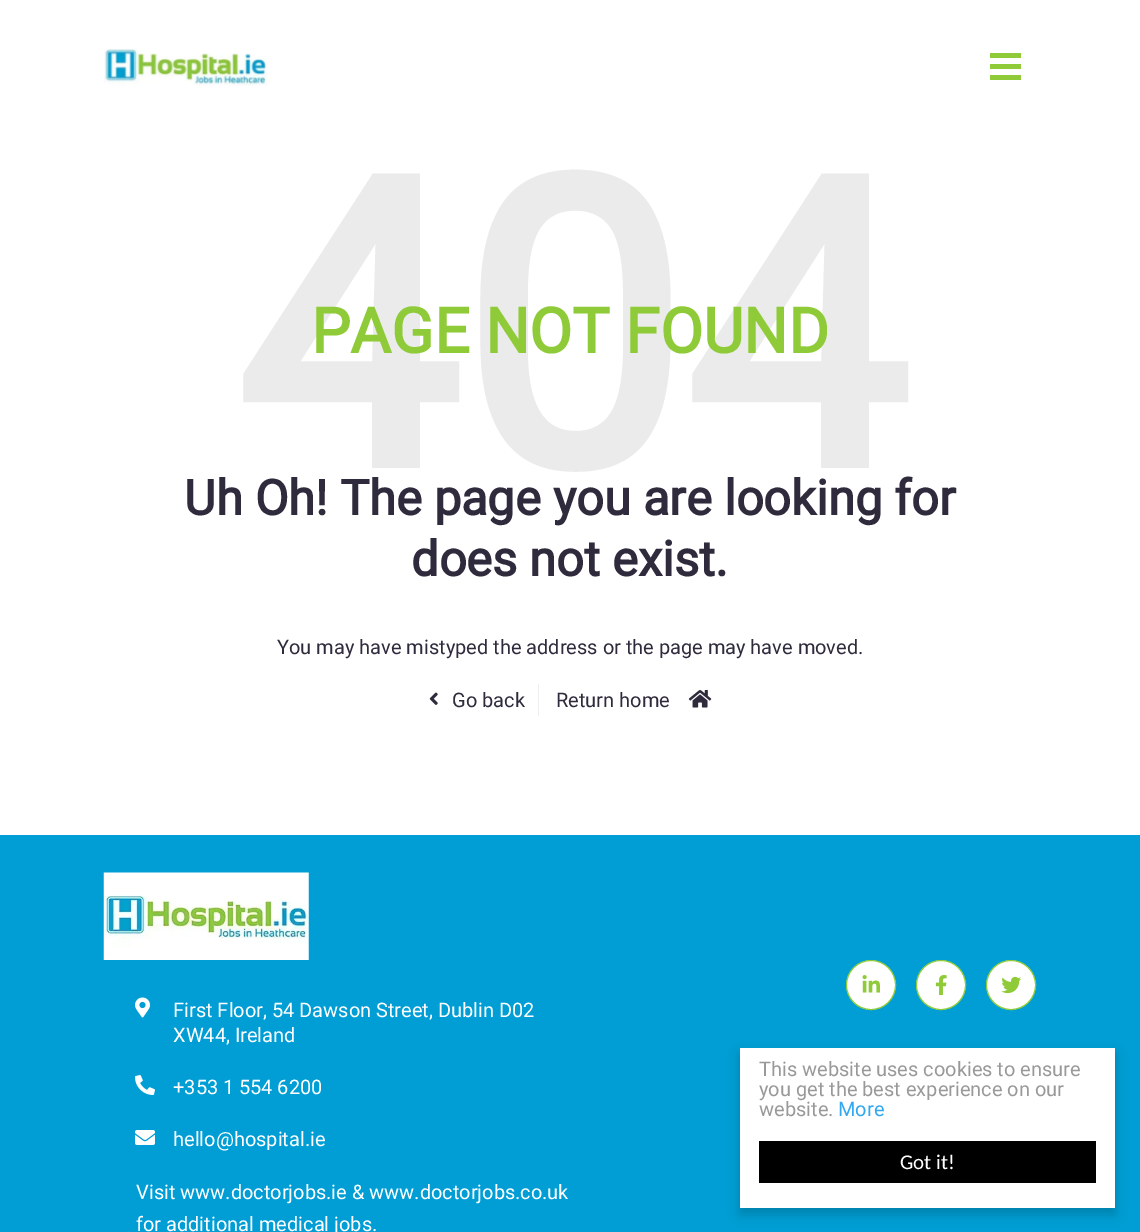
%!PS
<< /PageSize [1140 1232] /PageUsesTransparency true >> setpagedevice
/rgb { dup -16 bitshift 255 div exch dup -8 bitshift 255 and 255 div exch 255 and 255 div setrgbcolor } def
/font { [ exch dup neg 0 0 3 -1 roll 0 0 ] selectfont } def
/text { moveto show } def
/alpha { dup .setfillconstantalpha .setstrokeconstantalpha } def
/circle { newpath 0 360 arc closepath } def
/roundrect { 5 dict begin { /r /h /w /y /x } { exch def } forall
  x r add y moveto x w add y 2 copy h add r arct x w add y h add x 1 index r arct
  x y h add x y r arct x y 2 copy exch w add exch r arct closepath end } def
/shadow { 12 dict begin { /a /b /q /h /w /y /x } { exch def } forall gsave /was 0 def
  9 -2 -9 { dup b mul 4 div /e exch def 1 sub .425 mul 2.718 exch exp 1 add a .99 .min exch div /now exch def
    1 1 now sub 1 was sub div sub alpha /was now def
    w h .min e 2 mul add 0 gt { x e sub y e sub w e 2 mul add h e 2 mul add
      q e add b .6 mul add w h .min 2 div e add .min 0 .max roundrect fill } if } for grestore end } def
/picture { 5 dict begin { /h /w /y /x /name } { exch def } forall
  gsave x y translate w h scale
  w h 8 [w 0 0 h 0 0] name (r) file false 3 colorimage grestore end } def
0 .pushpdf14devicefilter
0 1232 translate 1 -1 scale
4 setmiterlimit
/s1 { /Roboto-Bold 400 font 16#EBEBEB rgb } def
/s2 { /Roboto-Bold 62.5 font 16#8FCB38 rgb } def
/s3 { /Roboto-Bold 48.8 font 16#2F2B3D rgb } def
/s4 { /Roboto-Regular 20 font 16#2F2B3D rgb } def
/s5 { /Roboto-Regular 20 font 16#FFFFFF rgb } def
/s6 { /Roboto-Regular 20 font 16#999999 rgb } def
/s7 { /Roboto-Regular 20 font 16#31A8F0 rgb } def
/s8 { /Carlito-Regular 21 font 16#FFFFFF rgb } def
16#FFFFFF rgb
0 0 1140 1232 rectfill
(pic1.raw) 104 49 164 37 picture
16#8FCB38 rgb
990 64 31 5 rectfill
990 53 31 5 rectfill
990 75 31 5 rectfill
s1
(404) 233 468 text
s2
(PAGE NOT FOUND) 311 353 text
s3
(Uh Oh! The page you are looking for) 184 515 text
(does not exist.) 411 576 text
s4
(You may have mistyped the address or the page may have moved.) 277 654 text
16#EEEEEE rgb
538 684 1 32 rectfill
(pic2.raw) 429 692 9 13 picture
s4
(Go back) 452 707 text
(Return home) 556 707 text
(pic3.raw) 688 690 24 18 picture
16#009ED5 rgb
0 835 1140 397 rectfill
16#FFFFFF rgb
871 985 24.5 circle gsave fill grestore
16#8FCB38 rgb
stroke
(pic4.raw) 862 975 18 18 picture
16#FFFFFF rgb
941 985 24.5 circle gsave fill grestore
16#8FCB38 rgb
stroke
(pic5.raw) 935 975 12 20 picture
16#FFFFFF rgb
1011 985 24.5 circle gsave fill grestore
16#8FCB38 rgb
stroke
(pic6.raw) 1001 976 21 18 picture
(pic7.raw) 103 872 206 88 picture
(pic8.raw) 135 997 15 21 picture
s5
(First Floor, 54 Dawson Street, Dublin D02) 173 1017 text
(XW44, Ireland) 173 1042 text
(pic9.raw) 135 1075 20 20 picture
(+353 1 5) 173 1094 text
(54 6200) 250 1094 text
(pic10.raw) 135 1130 20 15 picture
(hello@hospital.ie) 173 1146 text
(Visit www.doctorjobs.ie & www.doctorjobs.co.uk) 136 1199 text
(for additional medical jobs.) 136 1231 text
16#000000 rgb
740 1054 375 160 0 6 0.2 shadow
16#FFFFFF rgb
740 1048 375 160 rectfill
s6
(This website uses cookies to ensure) 759 1076 text
(you get the best experience on our) 759 1096 text
(website.) 759 1116 text
s7
(More) 838 1116 text
16#000000 rgb
759 1141 337 42 rectfill
s8
(Got it!) 900 1169 text
.poppdf14devicefilter showpage
